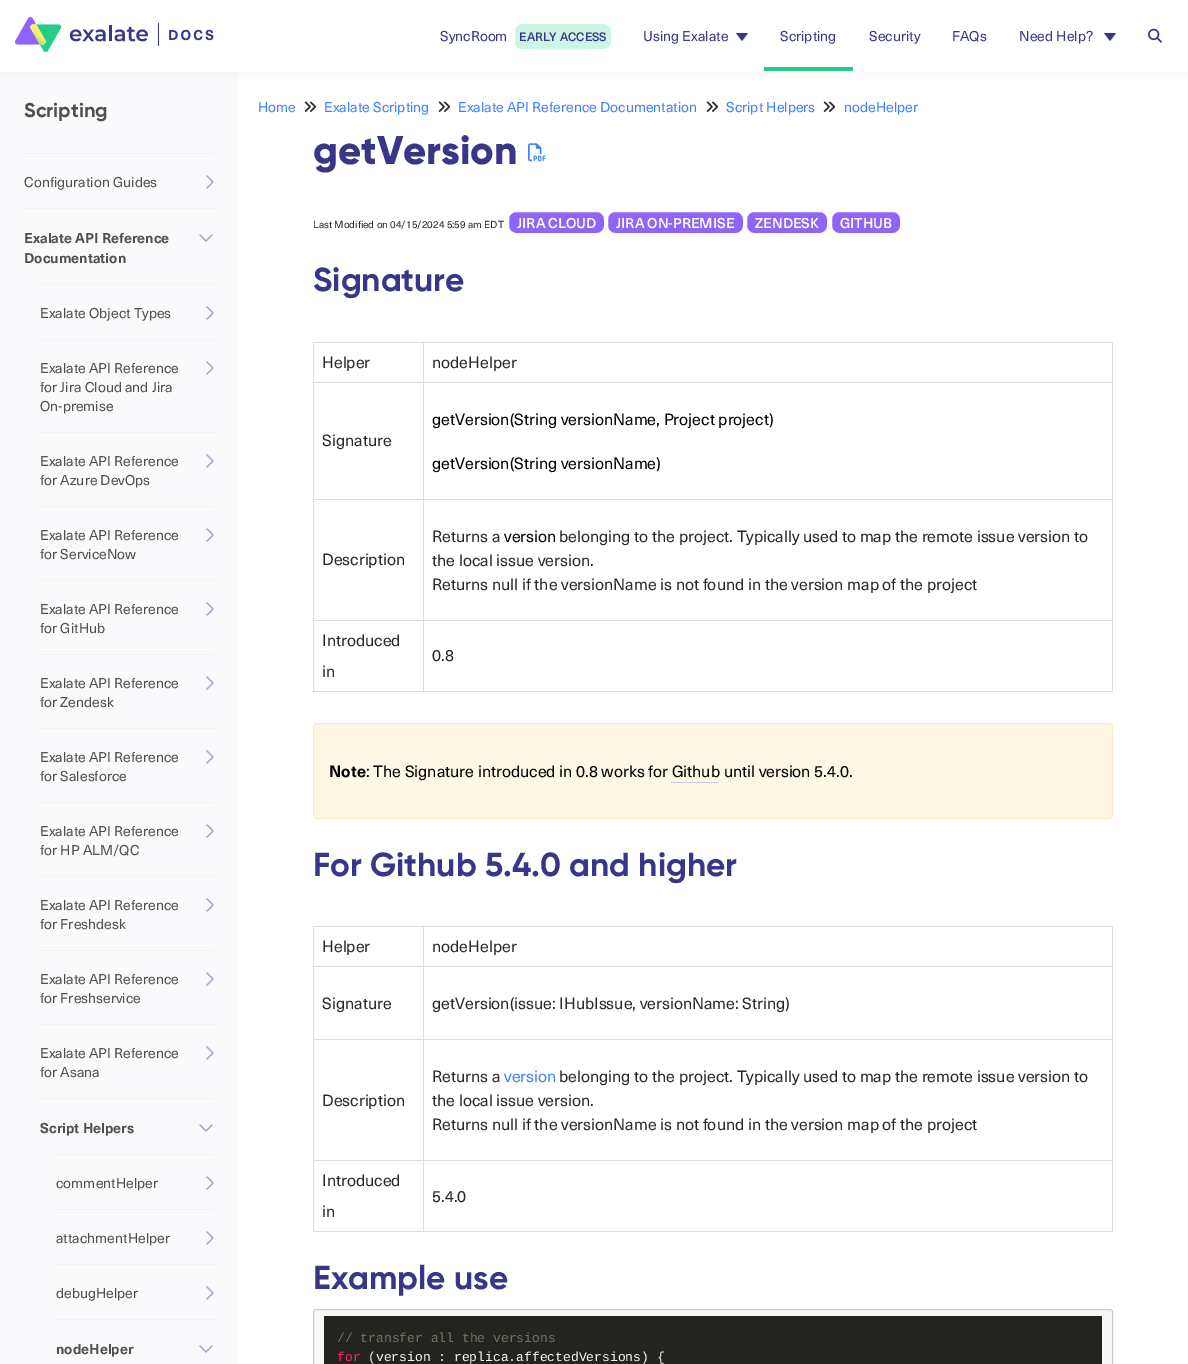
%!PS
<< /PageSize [1188 1364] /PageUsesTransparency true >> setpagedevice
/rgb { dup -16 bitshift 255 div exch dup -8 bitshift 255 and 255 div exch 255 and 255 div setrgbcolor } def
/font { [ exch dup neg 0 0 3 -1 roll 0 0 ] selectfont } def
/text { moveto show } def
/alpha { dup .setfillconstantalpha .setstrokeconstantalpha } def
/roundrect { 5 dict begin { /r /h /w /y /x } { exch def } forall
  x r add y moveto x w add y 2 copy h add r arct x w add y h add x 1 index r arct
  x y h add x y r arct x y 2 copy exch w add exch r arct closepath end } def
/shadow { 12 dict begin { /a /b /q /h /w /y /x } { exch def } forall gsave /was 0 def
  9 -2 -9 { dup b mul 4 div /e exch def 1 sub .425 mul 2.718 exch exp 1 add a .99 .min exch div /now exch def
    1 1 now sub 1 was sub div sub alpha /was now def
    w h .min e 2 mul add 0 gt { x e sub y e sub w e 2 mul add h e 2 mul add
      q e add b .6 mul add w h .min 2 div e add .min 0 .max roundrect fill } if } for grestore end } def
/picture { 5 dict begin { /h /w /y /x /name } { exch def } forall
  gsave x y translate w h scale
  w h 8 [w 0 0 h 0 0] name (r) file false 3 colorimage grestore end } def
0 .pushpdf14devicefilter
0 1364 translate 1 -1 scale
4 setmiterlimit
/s1 { /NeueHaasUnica-Regular 14 font 16#383689 rgb } def
/s2 { /NeueHaasUnica-Medium 12 font 16#383689 rgb } def
/s3 { /Gilroy-Bold 20 font 16#4F4F4F rgb } def
/s4 { /NeueHaasUnica-Regular 14 font 16#4F4F4F rgb } def
/s5 { /NeueHaasUnica-Bold 14 font 16#4F4F4F rgb } def
/s6 { /NeueHaasUnica-Regular 14 font 16#4080FF rgb } def
/s7 { /Gilroy-ExtraBold 40 font 16#383689 rgb } def
/s8 { /NeueHaasUnica-Regular 10 font 16#292929 rgb } def
/s9 { /NeueHaasUnica-Medium 14 font 16#FFFFFF rgb } def
/s10 { /Gilroy-Bold 33.25 font 16#383689 rgb } def
/s11 { /NeueHaasUnica-Regular 16 font 16#292929 rgb } def
/s12 { /NeueHaasUnica-Regular 16 font 16#000000 rgb } def
/s13 { /NeueHaasUnica-Bold 16 font 16#000000 rgb } def
/s14 { /NeueHaasUnica-Regular 16 font 16#4080FF rgb } def
/s15 { /LiberationMono-Regular 13 font 16#75715E rgb } def
/s16 { /LiberationMono-Regular 13 font 16#F92672 rgb } def
/s17 { /LiberationMono-Regular 13 font 16#F8F8F2 rgb } def
16#FAFAFC rgb
0 0 1188 1364 rectfill
16#FFFFFF rgb
238 72 950 1292 rectfill
16#CCCAE9 rgb
0 0 1188 72 0 7.5 0.24 shadow
16#FFFFFF rgb
0 0 1188 72 rectfill
(pic1.raw) 15 17 199 35 picture
s1
(SyncRoom) 440 41 text
16#CDF5E4 rgb
515 24 96 25 8 roundrect fill
s2
(EARLY ACCESS) 519 41 text
s1
(Using Exalate) 643 41 text
736 33 moveto 748 33 lineto 742 41 lineto closepath fill
16#24CE84 rgb
764 67 89 4 rectfill
s1
(Scripting) 780 41 text
(Security) 869 41 text
(FAQs) 952 41 text
(Need Help?) 1019 41 text
1104 33 moveto 1116 33 lineto 1110 41 lineto closepath fill
(pic2.raw) 1148 28 14 15 picture
s3
(Scripting) 24 117 text
16#F2F2F2 rgb
24 153 190 1 rectfill
s4
(Configuration Guides) 24 187 text
(pic3.raw) 206 175 8 14 picture
16#F2F2F2 rgb
24 208 190 1 rectfill
s5
(Exalate API Reference) 24 243 text
(Documentation) 24 263 text
(pic4.raw) 199 234 14 8 picture
16#F2F2F2 rgb
40 284 174 1 rectfill
s4
(Exalate Object Types) 40 318 text
(pic3.raw) 206 306 8 14 picture
16#F2F2F2 rgb
40 339 174 1 rectfill
s4
(Exalate API Reference) 40 373 text
(for Jira Cloud and Jira) 40 392 text
(On-premise) 40 411 text
(pic3.raw) 206 361 8 14 picture
16#F2F2F2 rgb
40 432 174 1 rectfill
s4
(Exalate API Reference) 40 466 text
(for Azure DevOps) 40 485 text
(pic3.raw) 206 454 8 14 picture
16#F2F2F2 rgb
40 506 174 1 rectfill
s4
(Exalate API Reference) 40 540 text
(for ServiceNow) 40 559 text
(pic3.raw) 206 528 8 14 picture
16#F2F2F2 rgb
40 580 174 1 rectfill
s4
(Exalate API Reference) 40 614 text
(for GitHub) 40 633 text
(pic3.raw) 206 602 8 14 picture
16#F2F2F2 rgb
40 654 174 1 rectfill
s4
(Exalate API Reference) 40 688 text
(for Zendesk) 40 707 text
(pic3.raw) 206 676 8 14 picture
16#F2F2F2 rgb
40 728 174 1 rectfill
s4
(Exalate API Reference) 40 762 text
(for Salesforce) 40 781 text
(pic3.raw) 206 750 8 14 picture
16#F2F2F2 rgb
40 802 174 1 rectfill
s4
(Exalate API Reference) 40 836 text
(for HP ALM/QC) 40 855 text
(pic3.raw) 206 824 8 14 picture
16#F2F2F2 rgb
40 876 174 1 rectfill
s4
(Exalate API Reference) 40 910 text
(for Freshdesk) 40 929 text
(pic3.raw) 206 898 8 14 picture
16#F2F2F2 rgb
40 950 174 1 rectfill
s4
(Exalate API Reference) 40 984 text
(for Freshservice) 40 1003 text
(pic3.raw) 206 972 8 14 picture
16#F2F2F2 rgb
40 1024 174 1 rectfill
s4
(Exalate API Reference) 40 1058 text
(for Asana) 40 1077 text
(pic3.raw) 206 1046 8 14 picture
16#F2F2F2 rgb
40 1098 174 1 rectfill
s5
(Script Helpers) 40 1133 text
(pic4.raw) 199 1124 14 8 picture
16#F2F2F2 rgb
56 1154 158 1 rectfill
s4
(commentHelper) 56 1188 text
(pic3.raw) 206 1176 8 14 picture
16#F2F2F2 rgb
56 1209 158 1 rectfill
s4
(attachmentHelper) 56 1243 text
(pic3.raw) 206 1231 8 14 picture
16#F2F2F2 rgb
56 1264 158 1 rectfill
s4
(debugHelper) 56 1298 text
(pic3.raw) 206 1286 8 14 picture
16#F2F2F2 rgb
56 1319 158 1 rectfill
s5
(nodeHelper) 56 1354 text
(pic4.raw) 199 1345 14 8 picture
s6
(Home) 258 112 text
(pic5.raw) 304 101 13 11 picture
(Exalate Scripting) 324 112 text
(pic5.raw) 438 101 13 11 picture
(Exalate API Reference Documentation) 458 112 text
(pic5.raw) 706 101 13 11 picture
(Script Helpers) 726 112 text
(pic5.raw) 823 101 13 11 picture
(nodeHelper) 844 112 text
s7
(getVersion) 313 164 text
(pic6.raw) 528 143 18 19 picture
s8
(Last Modified on 04/15/2024 5:59 am EDT) 313 228 text
16#8F64F9 rgb
508.5 211.5 96 22 7.5 roundrect gsave fill grestore
16#FFFFFF rgb
stroke
s9
(JIRA CLOUD) 517 228 text
16#8F64F9 rgb
607.5 211.5 136 22 7.5 roundrect gsave fill grestore
16#FFFFFF rgb
stroke
(JIRA ON-PREMISE) 616 228 text
16#8F64F9 rgb
746.5 211.5 81 22 7.5 roundrect gsave fill grestore
16#FFFFFF rgb
stroke
(ZENDESK) 755 228 text
16#8F64F9 rgb
831.5 211.5 69 22 7.5 roundrect gsave fill grestore
16#FFFFFF rgb
stroke
(GITHUB) 840 228 text
s10
(Signature) 313 291 text
16#DDDDDD rgb
313 342 800 1 rectfill
1112 342 1 350 rectfill
313 691 800 1 rectfill
313 342 1 350 rectfill
s11
(Helper) 322 368 text
16#DDDDDD rgb
423 382 690 1 rectfill
423 499 690 1 rectfill
423 620 690 1 rectfill
423 620 1 72 rectfill
313 620 111 1 rectfill
423 499 1 122 rectfill
313 499 111 1 rectfill
423 382 1 118 rectfill
313 382 111 1 rectfill
423 342 1 41 rectfill
s11
(nodeHelper) 432 368 text
(Signature) 322 446 text
s12
(getVersion\(String versionName, Project project\)) 432 425 text
(getVersion\(String versionName\)) 432 469 text
s11
(Description) 322 565 text
(Returns a) 432 542 text
s12
(version) 504 542 text
s11
(belonging to the project. Typically used to map the remote issue version to) 559 542 text
(the local issue version.) 432 566 text
(Returns null if the versionName is not found in the version map of the project) 432 590 text
(Introduced) 322 646 text
(in) 322 677 text
(0.8) 432 661 text
16#FCF8E3 rgb
313.5 723.5 799 95 3.5 roundrect gsave fill grestore
16#FAEBCC rgb
stroke
s13
(Note) 329 777 text
s12
(: The Signature introduced in 0.8 works for Github until version 5.4.0.) 366 777 text
16#CCCAE9 rgb
671 782 48 1 rectfill
s10
(For Github 5.4.0 and higher) 313 876 text
16#DDDDDD rgb
313 926 800 1 rectfill
1112 926 1 306 rectfill
313 1231 800 1 rectfill
313 926 1 306 rectfill
s11
(Helper) 322 952 text
16#DDDDDD rgb
423 966 690 1 rectfill
423 1039 690 1 rectfill
423 1160 690 1 rectfill
423 1160 1 72 rectfill
313 1160 111 1 rectfill
423 1039 1 122 rectfill
313 1039 111 1 rectfill
423 966 1 74 rectfill
313 966 111 1 rectfill
423 926 1 41 rectfill
s11
(nodeHelper) 432 952 text
(Signature) 322 1009 text
(getVersion\(issue: IHubIssue, versionName: String\)) 432 1009 text
(Description) 322 1106 text
(Returns a) 432 1082 text
s14
(version) 504 1082 text
s11
(belonging to the project. Typically used to map the remote issue version to) 559 1082 text
(the local issue version.) 432 1106 text
(Returns null if the versionName is not found in the version map of the project) 432 1130 text
(Introduced) 322 1186 text
(in) 322 1217 text
(5.4.0) 432 1202 text
s10
(Example use) 313 1289 text
16#F8F8F8 rgb
313.5 1309.5 799 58 2.5 roundrect gsave fill grestore
16#CCCCCC rgb
stroke
16#23241F rgb
324 1316 778 48 rectfill
s15
(// transfer all the versions) 337 1342 text
s16
(for) 337 1361 text
s17
(\(version : replica.affectedVersions\) {) 368 1361 text
.poppdf14devicefilter showpage
